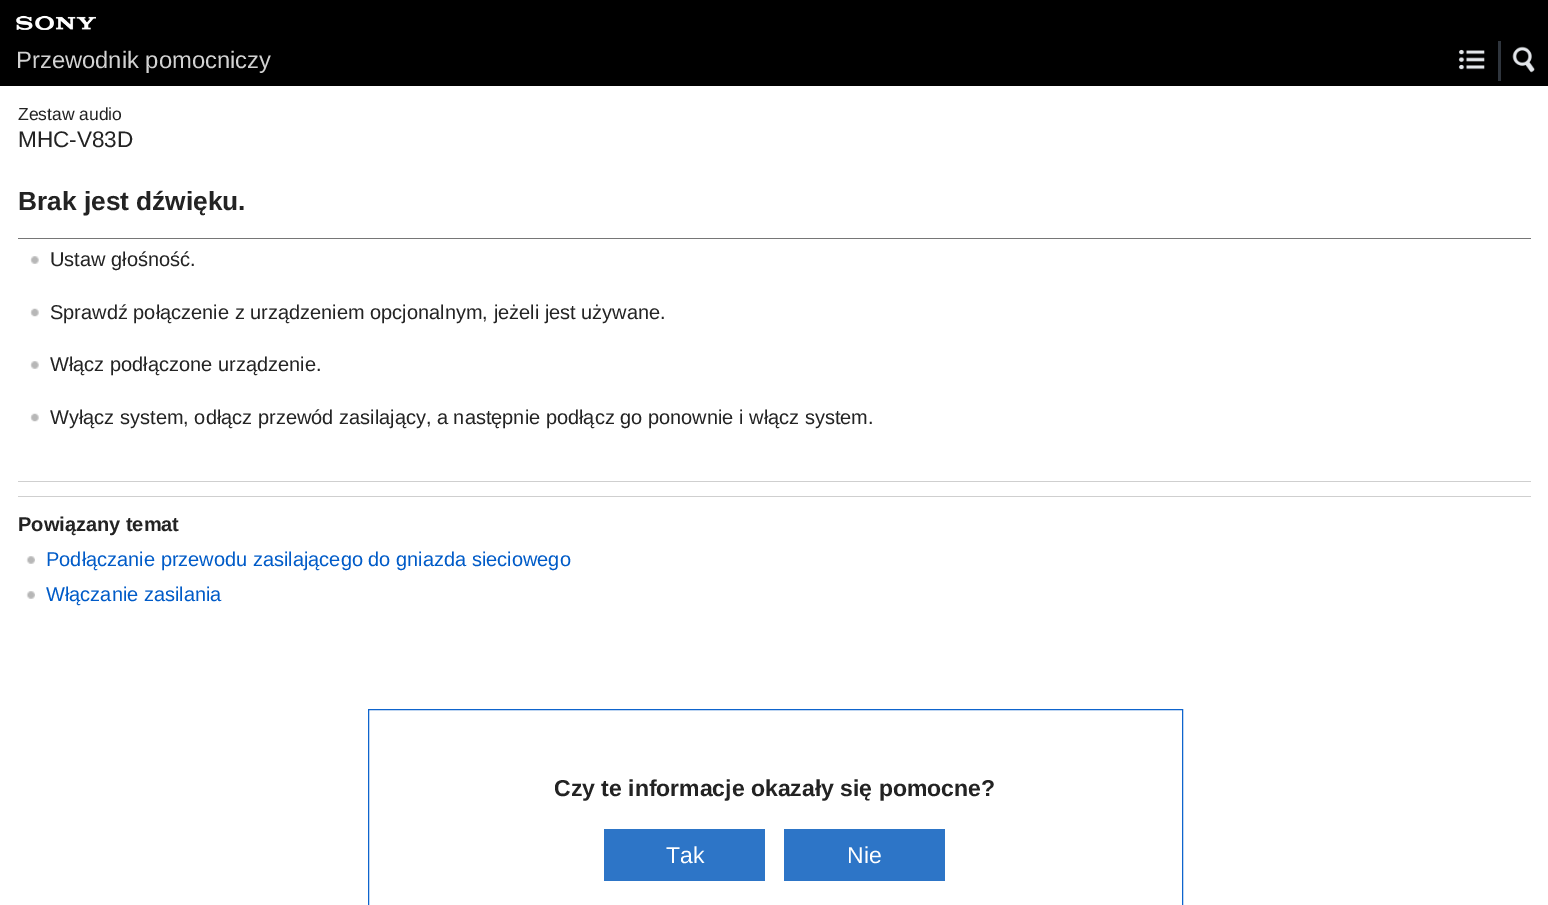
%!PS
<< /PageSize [1548 905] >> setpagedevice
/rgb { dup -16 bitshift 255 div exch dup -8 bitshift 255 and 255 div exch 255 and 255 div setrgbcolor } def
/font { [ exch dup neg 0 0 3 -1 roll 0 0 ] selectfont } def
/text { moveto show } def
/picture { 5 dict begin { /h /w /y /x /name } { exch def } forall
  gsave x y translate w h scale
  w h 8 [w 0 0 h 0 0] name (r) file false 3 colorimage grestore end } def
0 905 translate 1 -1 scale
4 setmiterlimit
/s1 { /LiberationSans-Regular 23.75 font 16#D2D2D2 rgb } def
/s2 { /LiberationSans-Regular 17.5 font 16#232323 rgb } def
/s3 { /LiberationSans-Regular 22.5 font 16#232323 rgb } def
/s4 { /LiberationSans-Bold 26.25 font 16#232323 rgb } def
/s5 { /LiberationSans-Regular 20 font 16#232323 rgb } def
/s6 { /LiberationSans-Bold 20 font 16#232323 rgb } def
/s7 { /LiberationSans-Regular 20 font 16#005BC8 rgb } def
/s8 { /LiberationSans-Bold 23 font 16#232323 rgb } def
/s9 { /LiberationSans-Regular 23 font 16#FFFFFF rgb } def
16#FFFFFF rgb
0 0 1548 905 rectfill
16#000000 rgb
0 0 1548 86 rectfill
(pic1.raw) 16 15 80 15 picture
s1
(Przewodnik pomocniczy) 16 68 text
s2
(Zestaw audio) 18 120 text
s3
(MHC-V83D) 18 147 text
16#2F353D rgb
1498 41 3 40 rectfill
(pic2.raw) 1458 49 27 21 picture
(pic3.raw) 1512 46 23 27 picture
16#767676 rgb
18 238 1513 1 rectfill
s4
(Brak jest dźwięku.) 18 210 text
(pic4.raw) 30 256 9 8 picture
s5
(Ustaw głośność.) 50 266 text
(pic5.raw) 30 308 9 9 picture
(Sprawdź połączenie z urządzeniem opcjonalnym, jeżeli jest używane.) 50 319 text
(pic6.raw) 30 361 9 8 picture
(Włącz podłączone urządzenie.) 50 371 text
(pic5.raw) 30 413 9 9 picture
(Wyłącz system, odłącz przewód zasilający, a następnie podłącz go ponownie i włącz system.) 50 424 text
16#CFCFCF rgb
18 481 1513 1 rectfill
18 496 1513 1 rectfill
s6
(Powiązany temat) 18 531 text
(pic7.raw) 26 556 9 8 picture
s7
(Podłączanie przewodu zasilającego do gniazda sieciowego) 46 566 text
(pic7.raw) 26 591 9 8 picture
(Włączanie zasilania) 46 601 text
16#0E64CD rgb
368.5 709.5 814 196 rectstroke
s8
(Czy te informacje okazały się pomocne?) 554 796 text
16#2D75C7 rgb
604 829 161 52 rectfill
s9
(Tak) 666 863 text
16#2D75C7 rgb
784 829 161 52 rectfill
s9
(Nie) 847 863 text
showpage
